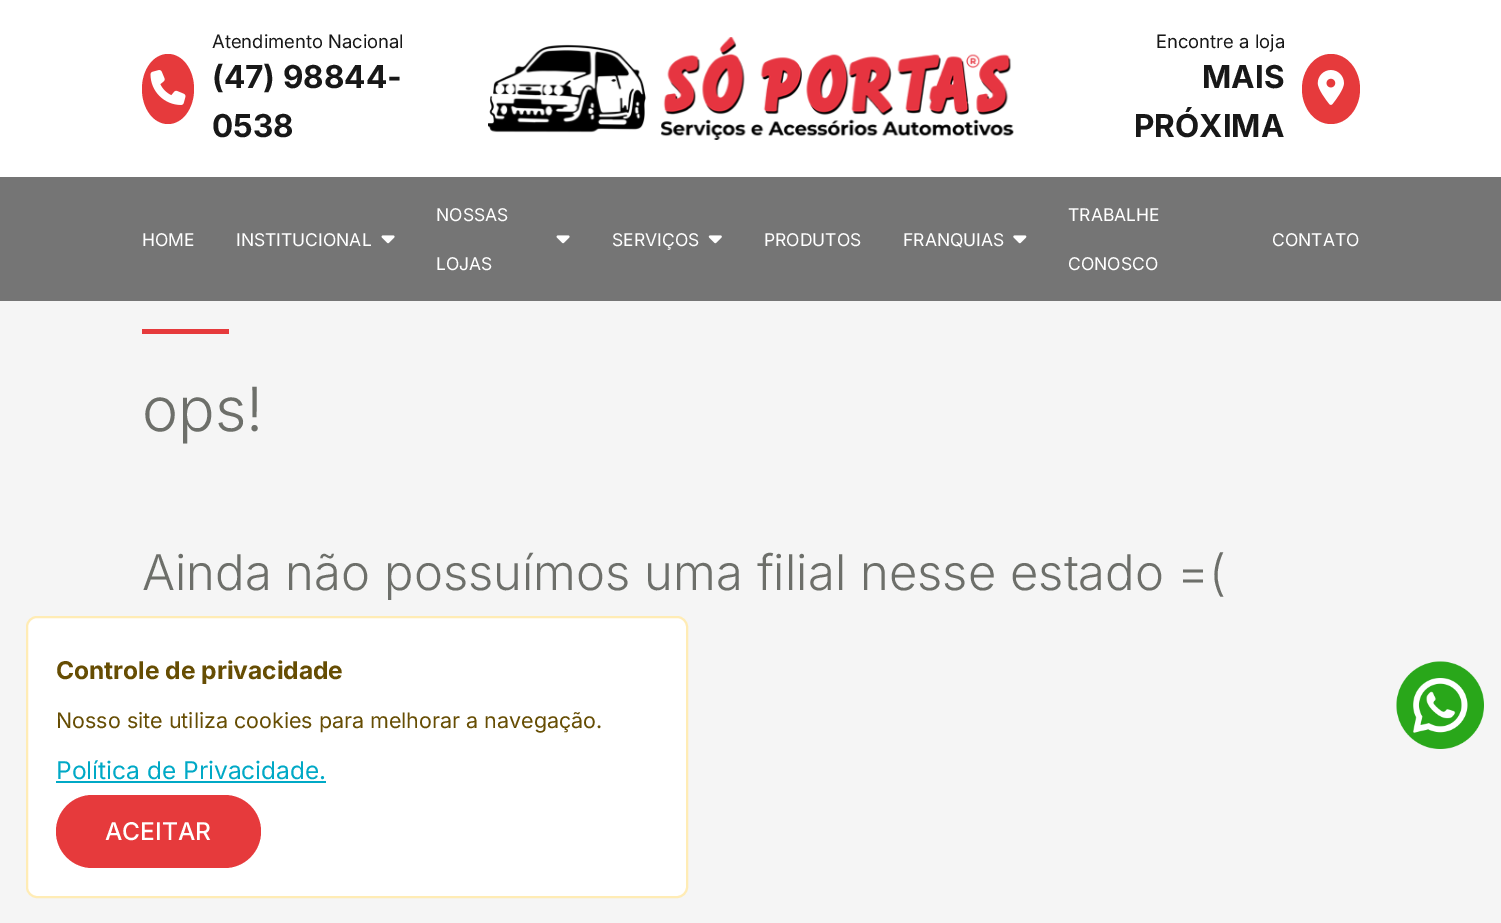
%!PS
<< /PageSize [1501 923] >> setpagedevice
/rgb { dup -16 bitshift 255 div exch dup -8 bitshift 255 and 255 div exch 255 and 255 div setrgbcolor } def
/font { [ exch dup neg 0 0 3 -1 roll 0 0 ] selectfont } def
/text { moveto show } def
/roundrect { 5 dict begin { /r /h /w /y /x } { exch def } forall
  x r add y moveto x w add y 2 copy h add r arct x w add y h add x 1 index r arct
  x y h add x y r arct x y 2 copy exch w add exch r arct closepath end } def
/picture { 5 dict begin { /h /w /y /x /name } { exch def } forall
  gsave x y translate w h scale
  w h 8 [w 0 0 h 0 0] name (r) file false 3 colorimage grestore end } def
0 923 translate 1 -1 scale
4 setmiterlimit
/s1 { /Inter-Regular 18.4 font 16#181818 rgb } def
/s2 { /Inter-Bold 31.5 font 16#181818 rgb } def
/s3 { /Inter-Regular 17.5 font 16#FFFFFF rgb } def
/s4 { /Inter-Light 61 font 16#6D6F6A rgb } def
/s5 { /Inter-Light 49 font 16#6D6F6A rgb } def
/s6 { /Inter-Bold 24.5 font 16#664D03 rgb } def
/s7 { /Inter-Regular 21.45 font 16#664D03 rgb } def
/s8 { /Inter-Regular 24.5 font 16#00A9C6 rgb } def
/s9 { /Inter-Medium 24.5 font 16#FFFFFF rgb } def
16#F5F5F5 rgb
0 0 1501 923 rectfill
16#FFFFFF rgb
0 0 1501 177 rectfill
16#E63A3C rgb
168 54 moveto 182.5 54 194 69.5 194 89 curveto 194 108.5 182.5 124 168 124 curveto 153.5 124 142 108.5 142 89 curveto 142 69.5 153.5 54 168 54 curveto closepath fill
(pic1.raw) 150 70 36 35 picture
s1
(Atendimento Nacional) 212 48 text
s2
(\(47\) 98844-) 212 88 text
(0538) 212 137 text
(pic2.raw) 488 37 526 103 picture
s1
(Encontre a loja) 1156 48 text
s2
(MAIS) 1202 88 text
(PRÓXIMA) 1134 137 text
16#E63A3C rgb
1331 54 moveto 1347 54 1360 69.5 1360 89 curveto 1360 108.5 1347 124 1331 124 curveto 1315 124 1302 108.5 1302 89 curveto 1302 69.5 1315 54 1331 54 curveto closepath fill
(pic3.raw) 1317 70 27 35 picture
16#757575 rgb
0 177 1501 124 rectfill
s3
(HOME) 142 246 text
(INSTITUCIONAL) 236 246 text
(pic4.raw) 381 235 14 9 picture
(NOSSAS) 436 221 text
(pic4.raw) 556 235 14 9 picture
(LOJAS) 436 270 text
(SERVIÇOS) 612 246 text
(pic5.raw) 708 235 14 9 picture
(PRODUTOS) 764 246 text
(FRANQUIAS) 903 246 text
(pic6.raw) 1013 235 14 9 picture
(TRABALHE) 1068 221 text
(CONOSCO) 1068 270 text
(CONTATO) 1272 246 text
16#E63A3C rgb
142 329 87 5 rectfill
s4
(ops!) 142 431 text
s5
(Ainda não possuímos uma filial nesse estado =\() 142 590 text
16#FFFFFF rgb
27 617 660 280 10 roundrect gsave fill grestore
16#FFECB5 rgb
2 setlinewidth
stroke
s6
(Controle de privacidade) 56 679 text
s7
(Nosso site utiliza cookies para melhorar a navegação.) 56 728 text
s8
(Política de Privacidade.) 56 779 text
56 781 270 2 rectfill
16#E63A3C rgb
56 795 205 73 36.5 roundrect fill
s9
(ACEITAR) 105 840 text
(pic7.raw) 1396 661 88 88 picture
showpage
